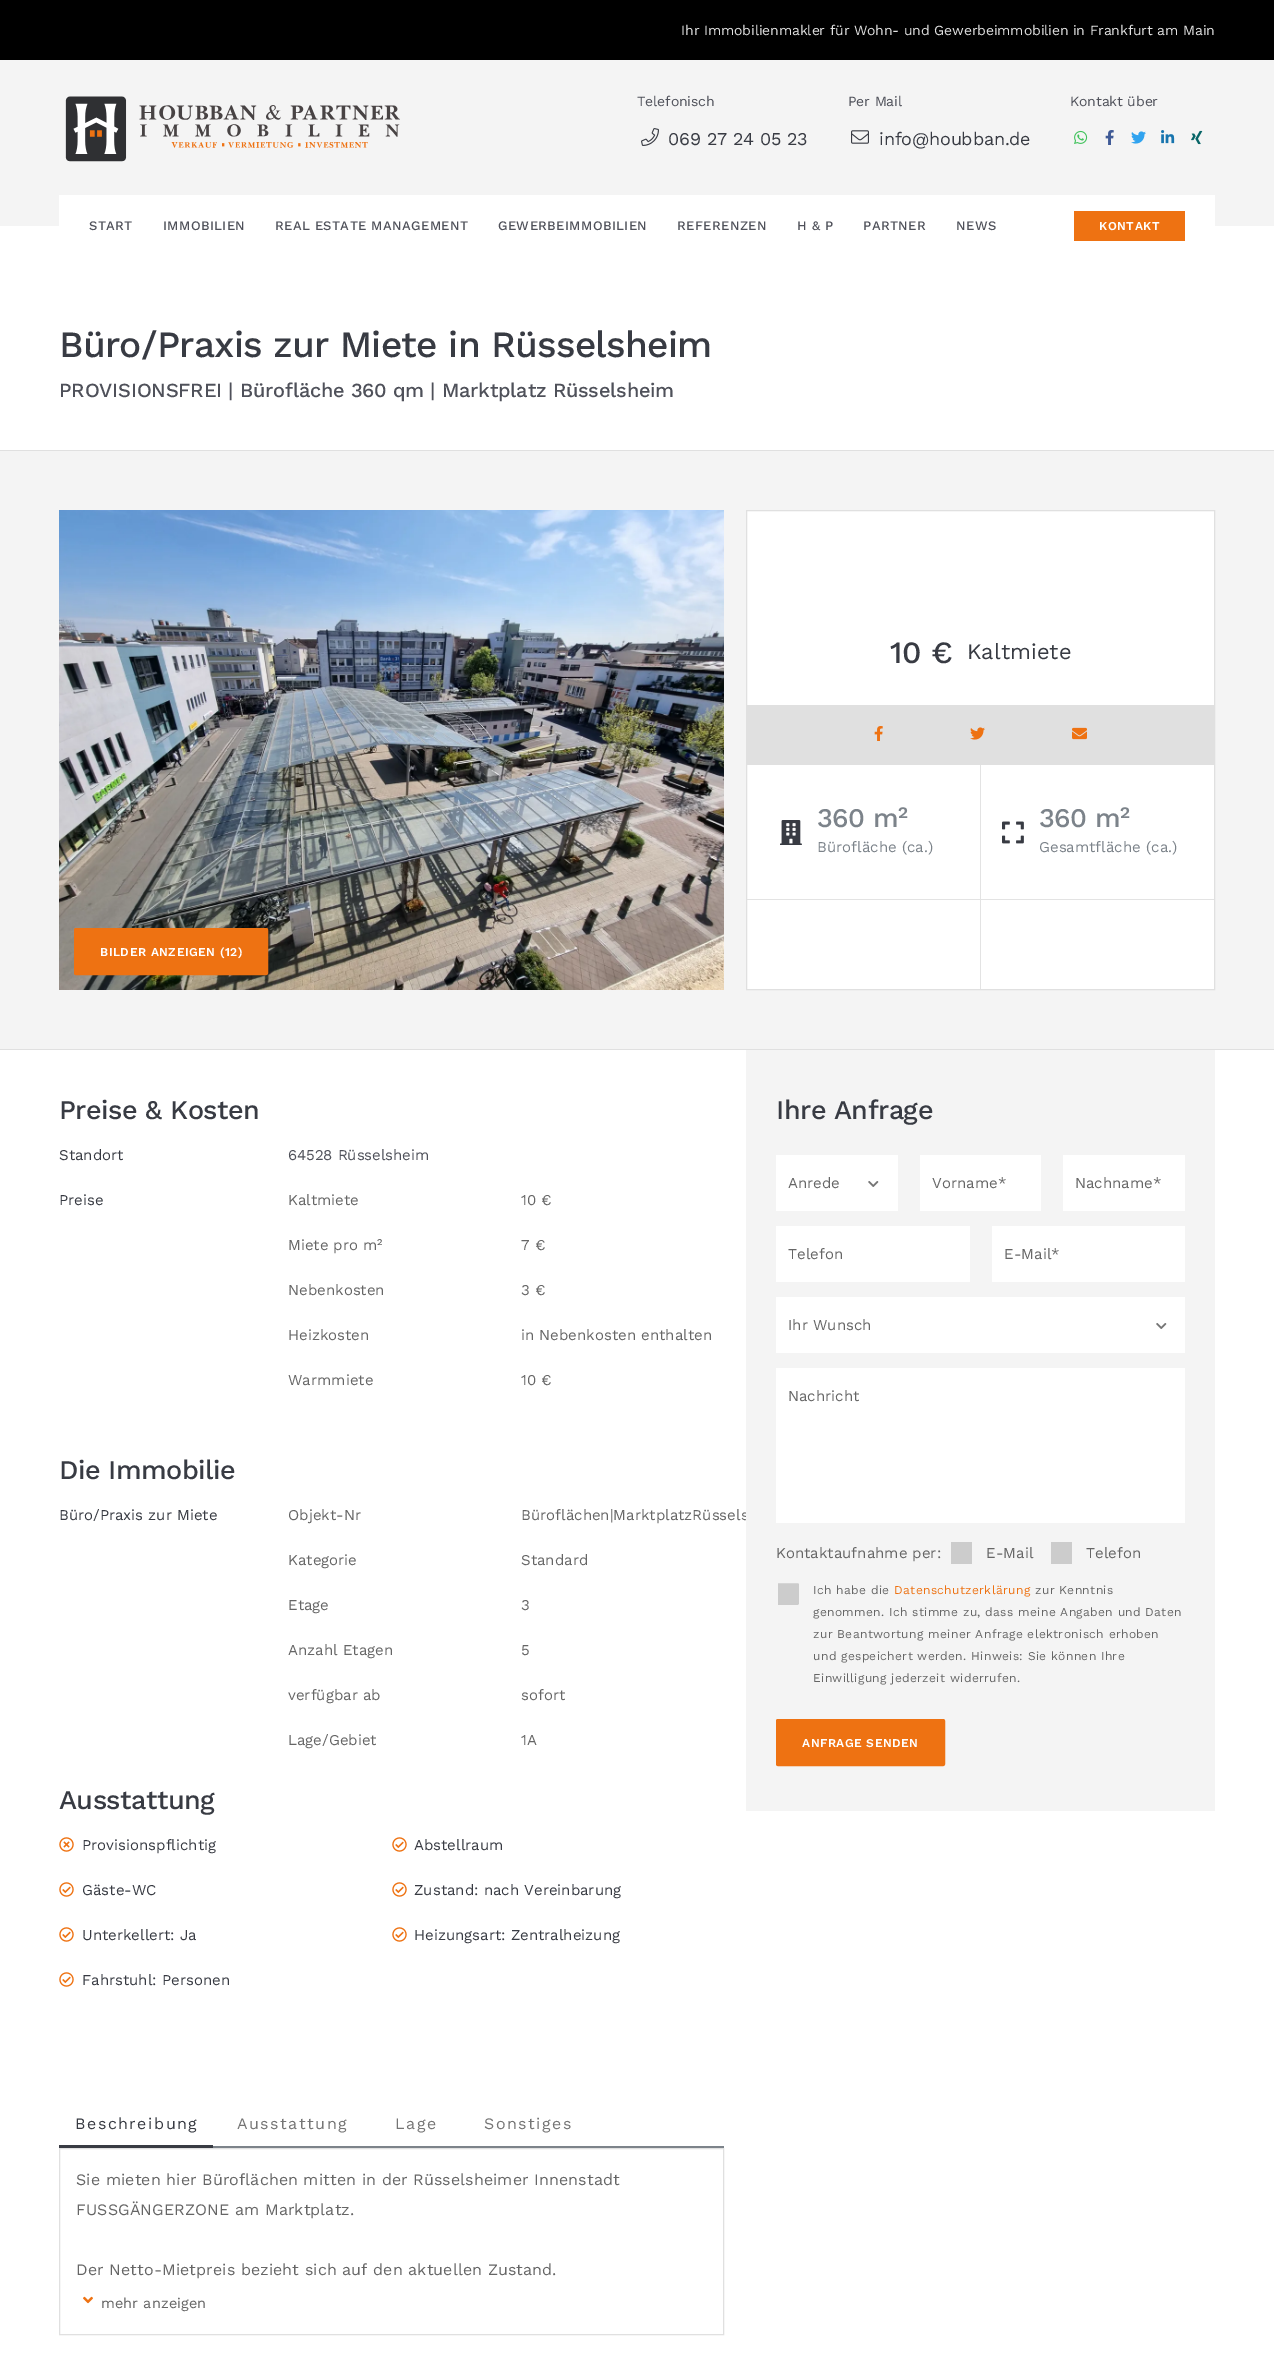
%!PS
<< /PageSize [1274 2369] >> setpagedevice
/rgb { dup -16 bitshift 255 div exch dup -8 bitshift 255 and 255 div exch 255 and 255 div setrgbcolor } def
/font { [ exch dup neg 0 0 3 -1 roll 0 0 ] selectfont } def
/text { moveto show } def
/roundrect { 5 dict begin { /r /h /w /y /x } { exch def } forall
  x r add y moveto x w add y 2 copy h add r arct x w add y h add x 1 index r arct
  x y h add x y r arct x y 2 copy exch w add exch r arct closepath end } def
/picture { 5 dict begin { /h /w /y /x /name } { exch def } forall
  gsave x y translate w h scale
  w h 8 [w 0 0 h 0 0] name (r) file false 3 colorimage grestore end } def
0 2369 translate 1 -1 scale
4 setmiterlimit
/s1 { /WorkSans-Regular 22 font 16#383B43 rgb } def
/s2 { /WorkSans-Regular 15 font 16#7C838A rgb } def
/s3 { /WorkSans-Regular 15 font 16#383B43 rgb } def
/s4 { /WorkSans-Regular 15 font 16#666666 rgb } def
16#FFFFFF rgb
0 0 1274 2369 rectfill
16#F4F4F4 rgb
0 60 1274 166 rectfill
16#000000 rgb
0 0 1274 60 rectfill
/WorkSans-Regular 14 font
16#E0E0E0 rgb
681 35 moveto -0.15 0 (Ihr Immobilienmakler für Wohn- und Gewerbeimmobilien in Frankfurt am Main) ashow
(pic1.raw) 65 96 335 66 picture
16#4F515A rgb
637 106 moveto -0.15 0 (Telefonisch) ashow
(pic2.raw) 641 128 18 18 picture
/WorkSans-Regular 18 font
16#383B43 rgb
668 145 moveto -0.2 0 (069 27 24 05 23) ashow
/WorkSans-Regular 14 font
16#4F515A rgb
848 106 moveto -0.15 0 (Per Mail) ashow
(pic3.raw) 851 130 18 14 picture
/WorkSans-Regular 18 font
16#383B43 rgb
879 145 moveto -0.2 0 (info@houbban.de) ashow
/WorkSans-Regular 14 font
16#4F515A rgb
1070 106 moveto -0.15 0 (Kontakt über) ashow
(pic4.raw) 1074 130 14 14 picture
(pic5.raw) 1105 130 9 15 picture
(pic6.raw) 1131 131 15 13 picture
(pic7.raw) 1161 130 14 14 picture
(pic8.raw) 1191 130 12 15 picture
16#FFFFFF rgb
59 195 1156 31 rectfill
/WorkSans-Medium 13 font
16#4F515A rgb
89 230 moveto 0.4 0 (START) ashow
163 230 moveto 0.4 0 (IMMOBILIEN) ashow
275 230 moveto 0.4 0 (REAL ESTATE MANAGEMENT) ashow
498 230 moveto 0.4 0 (GEWERBEIMMOBILIEN) ashow
677 230 moveto 0.4 0 (REFERENZEN) ashow
797 230 moveto 0.4 0 (H & P) ashow
863 230 moveto 0.4 0 (PARTNER) ashow
956 230 moveto 0.4 0 (NEWS) ashow
16#EE7212 rgb
1074 211 111 30 rectfill
/WorkSans-SemiBold 12 font
16#FFFFFF rgb
1099 230 moveto 0.5 0 (KONTAKT) ashow
/WorkSans-Medium 37 font
16#383B43 rgb
59 357 moveto -0.75 0 (Büro/Praxis zur Miete in Rüsselsheim) ashow
/WorkSans-Medium 20 font
16#4F515A rgb
59 397 moveto -0.2 0 (PROVISIONSFREI | Bürofläche 360 qm | Marktplatz Rüsselsheim) ashow
16#F4F4F4 rgb
0 451 1274 598 rectfill
16#E0E0E0 rgb
0 450 1274 1 rectfill
0 1049 1274 1 rectfill
16#FFFFFF rgb
746.5 510.5 moveto 1214.5 510.5 lineto 1214.5 989.5 lineto 746.5 989.5 lineto closepath gsave fill grestore
16#E0E0E0 rgb
stroke
/WorkSans-Medium 31 font
16#383B43 rgb
890 663 moveto -0.5 0 (10 €) ashow
s1
(Kaltmiete) 967 659 text
16#E0E0E0 rgb
747 705 467 60 rectfill
(pic9.raw) 874 726 9 15 picture
(pic10.raw) 970 727 15 13 picture
(pic11.raw) 1072 727 15 13 picture
(pic12.raw) 780 820 22 25 picture
/WorkSans-Medium 27 font
16#7C838A rgb
817 827 moveto -0.5 0 (360 m²) ashow
s2
(Bürofläche \(ca.\)) 817 852 text
16#E3E3E3 rgb
980 765 1 224 rectfill
747 899 467 1 rectfill
(pic13.raw) 1002 821 22 23 picture
/WorkSans-Medium 27 font
16#7C838A rgb
1039 827 moveto -0.5 0 (360 m²) ashow
s2
(Gesamtfläche \(ca.\)) 1039 852 text
(pic14.raw) 59 510 665 480 picture
16#EE7212 rgb
74.5 928.5 193 46 1.5 roundrect gsave fill grestore
stroke
/WorkSans-SemiBold 12 font
16#FFFFFF rgb
100 956 moveto 0.5 0 (BILDER ANZEIGEN \(12\)) ashow
/WorkSans-Medium 27 font
16#383B43 rgb
59 1119 moveto -0.5 0 (Preise & Kosten) ashow
s3
(Standort) 59 1160 text
16#4F515A rgb
288 1160 moveto -0.1 0 (64528 Rüsselsheim) ashow
s3
(Preise) 59 1205 text
s4
(Kaltmiete) 288 1205 text
(10 €) 521 1205 text
(Miete pro m²) 288 1250 text
(7 €) 521 1250 text
(Nebenkosten) 288 1295 text
(3 €) 521 1295 text
(Heizkosten) 288 1340 text
(in Nebenkosten enthalten) 521 1340 text
(Warmmiete) 288 1385 text
(10 €) 521 1385 text
/WorkSans-Medium 27 font
16#383B43 rgb
59 1479 moveto -0.5 0 (Die Immobilie) ashow
s3
(Büro/Praxis zur Miete) 59 1520 text
s4
(Objekt-Nr) 288 1520 text
(Büroflächen|MarktplatzRüssels) 521 1520 text
(Kategorie) 288 1565 text
(Standard) 521 1565 text
(Etage) 288 1610 text
(3) 521 1610 text
(Anzahl Etagen) 288 1655 text
(5) 521 1655 text
(verfügbar ab) 288 1700 text
(sofort) 521 1700 text
(Lage/Gebiet) 288 1745 text
(1A) 521 1745 text
/WorkSans-Medium 27 font
16#383B43 rgb
59 1809 moveto -0.5 0 (Ausstattung) ashow
(pic15.raw) 59 1837 15 15 picture
s3
(Provisionspflichtig) 82 1850 text
(pic16.raw) 392 1837 15 15 picture
(Abstellraum) 414 1850 text
(pic16.raw) 59 1882 15 15 picture
(Gäste-WC) 82 1895 text
(pic16.raw) 392 1882 15 15 picture
(Zustand: nach Vereinbarung) 414 1895 text
(pic16.raw) 59 1927 15 15 picture
(Unterkellert: Ja) 82 1940 text
(pic16.raw) 392 1927 15 15 picture
(Heizungsart: Zentralheizung) 414 1940 text
(pic16.raw) 59 1972 15 15 picture
(Fahrstuhl: Personen) 82 1985 text
/WorkSans-Regular 16 font
75 2129 moveto 1.5 0 (Beschreibung) ashow
16#757575 rgb
237 2129 moveto 1.5 0 (Ausstattung) ashow
395 2129 moveto 1.5 0 (Lage) ashow
484 2129 moveto 1.5 0 (Sonstiges) ashow
16#383B43 rgb
59 2145 154 3 rectfill
16#7C838A rgb
213 2146 511 2 rectfill
16#E0E0E0 rgb
59.5 2148.5 664 186 rectstroke
16#666666 rgb
76 2185 moveto 0.1 0 (Sie mieten hier Büroflächen mitten in der Rüsselsheimer Innenstadt) ashow
76 2215 moveto 0.1 0 (FUSSGÄNGERZONE am Marktplatz.) ashow
76 2275 moveto 0.1 0 (Der Netto-Mietpreis bezieht sich auf den aktuellen Zustand.) ashow
(pic17.raw) 83 2296 10 8 picture
/WorkSans-Regular 14.5 font
101 2308 moveto 0.1 0 (mehr anzeigen) ashow
16#F4F4F4 rgb
746 1050 469 761 rectfill
/WorkSans-Medium 27 font
16#383B43 rgb
776 1119 moveto -0.5 0 (Ihre Anfrage) ashow
16#FFFFFF rgb
776 1155 122 56 rectfill
s4
(Anrede) 788 1188 text
(pic18.raw) 868 1181 11 6 picture
16#FFFFFF rgb
920 1155 121 56 rectfill
s4
(Vorname*) 932 1188 text
16#FFFFFF rgb
1063 1155 122 56 rectfill
s4
(Nachname*) 1075 1188 text
16#FFFFFF rgb
776 1226 194 56 rectfill
s4
(Telefon) 788 1259 text
16#FFFFFF rgb
992 1226 193 56 rectfill
s4
(E-Mail*) 1004 1259 text
16#FFFFFF rgb
776 1297 409 56 rectfill
s4
(Ihr Wunsch) 788 1330 text
(pic18.raw) 1156 1323 11 6 picture
16#FFFFFF rgb
776 1368 409 155 rectfill
s4
(Nachricht) 788 1401 text
(Kontaktaufnahme per:) 776 1558 text
16#CCCCCC rgb
951 1542 21 22 rectfill
s4
(E-Mail) 986 1558 text
16#CCCCCC rgb
1051 1542 21 22 rectfill
s4
(Telefon) 1086 1558 text
16#CCCCCC rgb
778 1583 21 22 rectfill
16#F4F4F4 rgb
776.5 1582.5 23 23 1.5 roundrect stroke
/WorkSans-Regular 12 font
16#666666 rgb
813 1594 moveto 0.35 0 (Ich habe die) ashow
16#EE7212 rgb
894 1594 moveto 0.35 0 (Datenschutzerklärung) ashow
16#666666 rgb
1035 1594 moveto 0.35 0 (zur Kenntnis) ashow
813 1616 moveto 0.35 0 (genommen. Ich stimme zu, dass meine Angaben und Daten) ashow
813 1638 moveto 0.35 0 (zur Beantwortung meiner Anfrage elektronisch erhoben) ashow
813 1660 moveto 0.35 0 (und gespeichert werden. Hinweis: Sie können Ihre) ashow
813 1682 moveto 0.35 0 (Einwilligung jederzeit widerrufen.) ashow
16#EE7212 rgb
776.5 1719.5 168 46 1.5 roundrect gsave fill grestore
stroke
/WorkSans-SemiBold 12 font
16#FFFFFF rgb
802 1747 moveto 0.5 0 (ANFRAGE SENDEN) ashow
showpage
